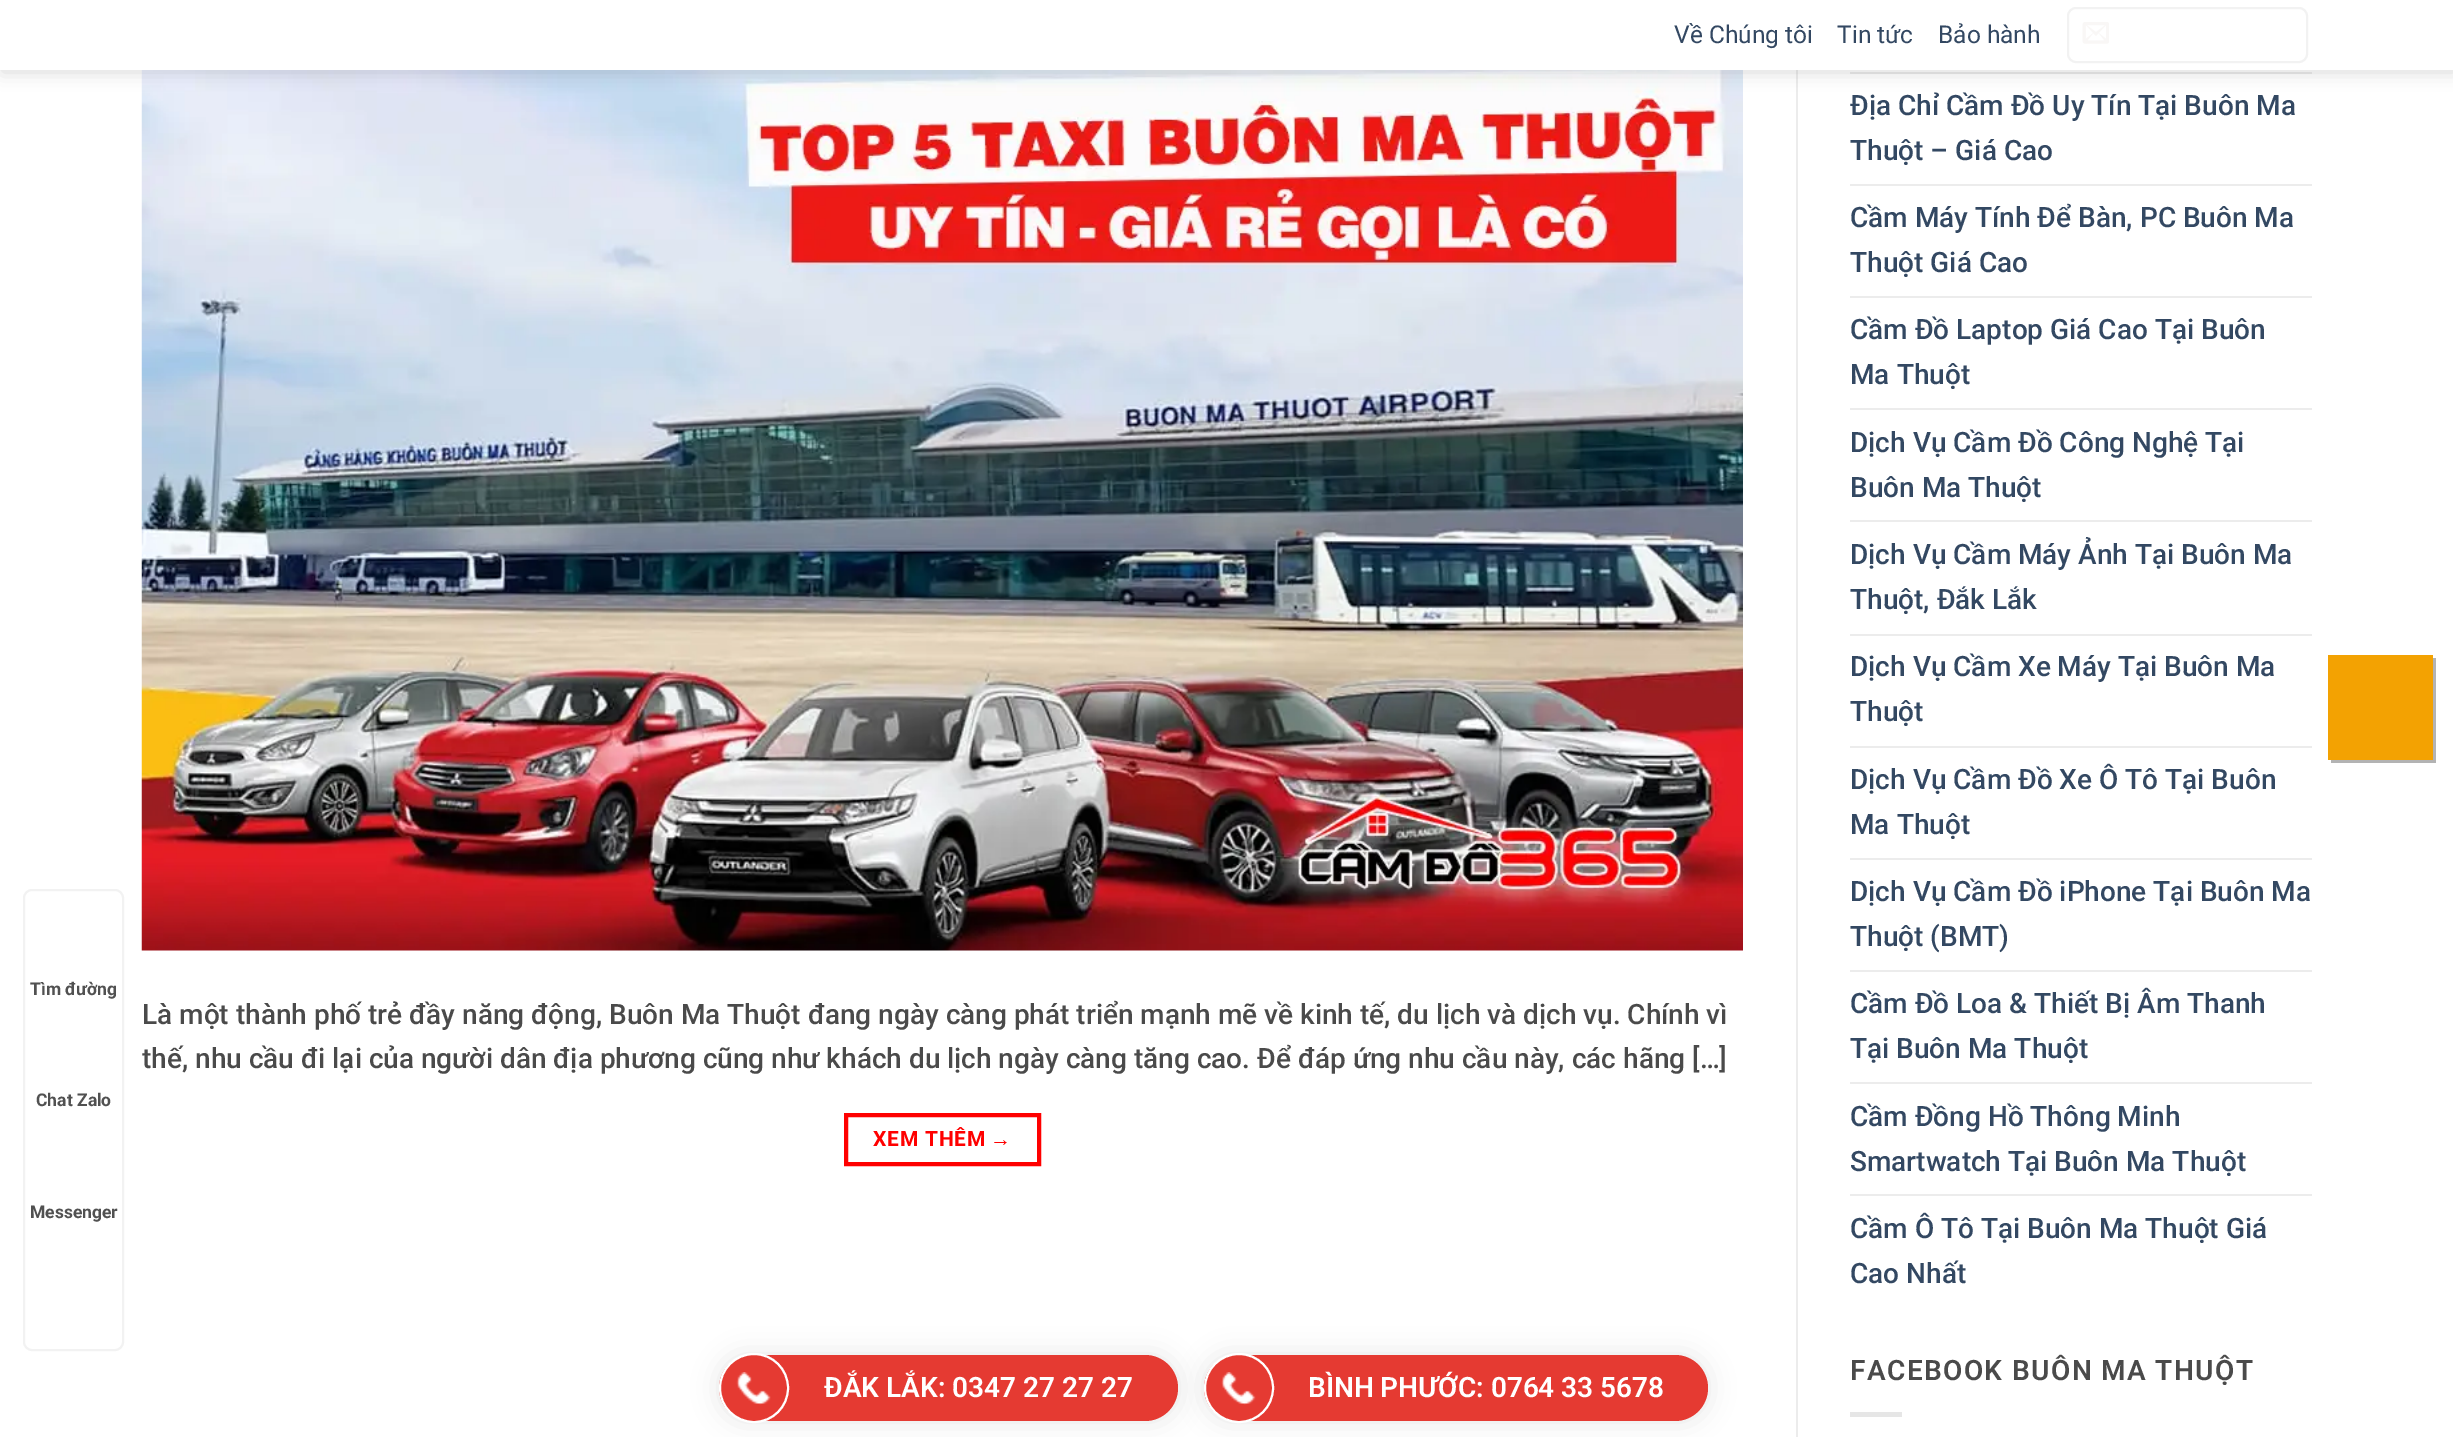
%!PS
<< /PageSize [2453 1437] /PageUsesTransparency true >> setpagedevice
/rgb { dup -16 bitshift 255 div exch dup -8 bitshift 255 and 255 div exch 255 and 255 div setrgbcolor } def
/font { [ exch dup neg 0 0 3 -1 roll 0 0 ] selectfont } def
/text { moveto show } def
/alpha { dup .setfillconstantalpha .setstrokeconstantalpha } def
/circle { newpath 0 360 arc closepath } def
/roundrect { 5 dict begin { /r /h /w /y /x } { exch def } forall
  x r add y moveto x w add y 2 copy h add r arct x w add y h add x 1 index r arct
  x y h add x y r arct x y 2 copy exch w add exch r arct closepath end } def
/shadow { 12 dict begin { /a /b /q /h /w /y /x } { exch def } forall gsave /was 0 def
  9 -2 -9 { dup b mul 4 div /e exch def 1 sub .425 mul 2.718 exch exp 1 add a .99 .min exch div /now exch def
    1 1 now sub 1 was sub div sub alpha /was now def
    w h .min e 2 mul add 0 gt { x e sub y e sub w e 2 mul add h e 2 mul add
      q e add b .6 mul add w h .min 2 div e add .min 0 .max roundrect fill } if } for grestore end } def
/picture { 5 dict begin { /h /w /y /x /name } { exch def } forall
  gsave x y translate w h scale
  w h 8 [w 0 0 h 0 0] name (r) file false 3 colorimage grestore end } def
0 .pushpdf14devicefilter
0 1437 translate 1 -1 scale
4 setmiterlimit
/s1 { /Roboto-Regular 24.5 font 16#334862 rgb } def
/s2 { /Roboto-Medium 28 font 16#4A4A4A rgb } def
/s3 { /Roboto-Medium 28 font 16#334862 rgb } def
/s4 { /Roboto-Bold 17.5 font 16#515151 rgb } def
/s5 { /Roboto-SemiBold 28 font 16#FFFFFF rgb } def
16#FFFFFF rgb
0 0 2453 1437 rectfill
(pic2.raw) 141 70 1602 881 picture
16#ECECEC rgb
1796 70 2 1367 rectfill
1850 72 462 2 rectfill
16#000000 rgb
2 2 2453 70 0 9 0.15 shadow
16#FFFFFF rgb
0 0 2453 70 rectfill
s1
(Về Chúng tôi) 1674 43 text
(Tin tức) 1837 43 text
(Bảo hành) 1938 43 text
16#F2F2F2 rgb
2 setlinewidth
2068 8 239 54 8 roundrect stroke
(pic1.raw) 2082 22 27 22 picture
s2
(Là một thành phố trẻ đầy năng động, Buôn Ma Thuột đang ngày càng phát triển mạnh mẽ về kinh tế, du lịch và dịch vụ. Chính vì) 142 1024 text
(thế, nhu cầu đi lại của người dân địa phương cũng như khách du lịch ngày càng tăng cao. Để đáp ứng nhu cầu này, các hãng […]) 142 1068 text
16#FF0000 rgb
4 setlinewidth
846 1115 193 49 rectstroke
/Roboto-Bold 21 font
873 1146 moveto 0.75 0 (XEM THÊM) ashow
/LiberationSerif-Bold 21 font
990 1146 moveto 0.75 0 (→) ashow
s3
(Địa Chỉ Cầm Đồ Uy Tín Tại Buôn Ma) 1850 115 text
(Thuột – Giá Cao) 1850 160 text
16#ECECEC rgb
1850 184 462 2 rectfill
s3
(Cầm Máy Tính Để Bàn, PC Buôn Ma) 1850 227 text
(Thuột Giá Cao) 1850 272 text
16#ECECEC rgb
1850 296 462 2 rectfill
s3
(Cầm Đồ Laptop Giá Cao Tại Buôn) 1850 339 text
(Ma Thuột) 1850 384 text
16#ECECEC rgb
1850 408 462 2 rectfill
s3
(Dịch Vụ Cầm Đồ Công Nghệ Tại) 1850 452 text
(Buôn Ma Thuột) 1850 497 text
16#ECECEC rgb
1850 520 462 2 rectfill
s3
(Dịch Vụ Cầm Máy Ảnh Tại Buôn Ma) 1850 564 text
(Thuột, Đắk Lắk) 1850 609 text
16#ECECEC rgb
1850 634 462 2 rectfill
s3
(Dịch Vụ Cầm Xe Máy Tại Buôn Ma) 1850 676 text
(Thuột) 1850 721 text
16#ECECEC rgb
1850 746 462 2 rectfill
s3
(Dịch Vụ Cầm Đồ Xe Ô Tô Tại Buôn) 1850 789 text
(Ma Thuột) 1850 834 text
16#ECECEC rgb
1850 858 462 2 rectfill
s3
(Dịch Vụ Cầm Đồ iPhone Tại Buôn Ma) 1850 901 text
(Thuột \(BMT\)) 1850 946 text
16#ECECEC rgb
1850 970 462 2 rectfill
s3
(Cầm Đồ Loa & Thiết Bị Âm Thanh) 1850 1013 text
(Tại Buôn Ma Thuột) 1850 1058 text
16#ECECEC rgb
1850 1082 462 2 rectfill
s3
(Cầm Đồng Hồ Thông Minh) 1850 1126 text
(Smartwatch Tại Buôn Ma Thuột) 1850 1171 text
16#ECECEC rgb
1850 1194 462 2 rectfill
s3
(Cầm Ô Tô Tại Buôn Ma Thuột Giá) 1850 1238 text
(Cao Nhất) 1850 1283 text
/Roboto-SemiBold 28 font
16#4A4A4A rgb
1850 1380 moveto 1.4 0 (FACEBOOK BUÔN MA THUỘT) ashow
16#E6E6E6 rgb
1850 1412 52 5 rectfill
16#B3B3B3 rgb
2331 759 moveto 2331 763 lineto 2436 763 lineto 2436 658 lineto 2432 658 lineto 2432 759 lineto closepath fill
16#F3A202 rgb
2328 655 105 105 rectfill
16#F2F2F2 rgb
2 setlinewidth
24 890 99 460 8 roundrect stroke
s4
(Tìm đường) 30 995 text
(Chat Zalo) 36 1106 text
(Messenger) 30 1218 text
16#000000 rgb
719 1355 459 66 33 13 0.1 shadow
16#E53A32 rgb
719 1355 459 66 33 roundrect fill
754 1388 34 circle gsave fill grestore
16#FFFFFF rgb
stroke
(pic3.raw) 736 1372 35 33 picture
s5
(ĐẮK LẮK: 0347 27 27 27) 824 1397 text
16#000000 rgb
1204 1355 504 66 33 13 0.1 shadow
16#E53A32 rgb
1204 1355 504 66 33 roundrect fill
1239 1388 34 circle gsave fill grestore
16#FFFFFF rgb
stroke
(pic4.raw) 1221 1372 35 33 picture
(BÌNH PHƯỚC: 0764 33 5678) 1308 1397 text
.poppdf14devicefilter showpage
